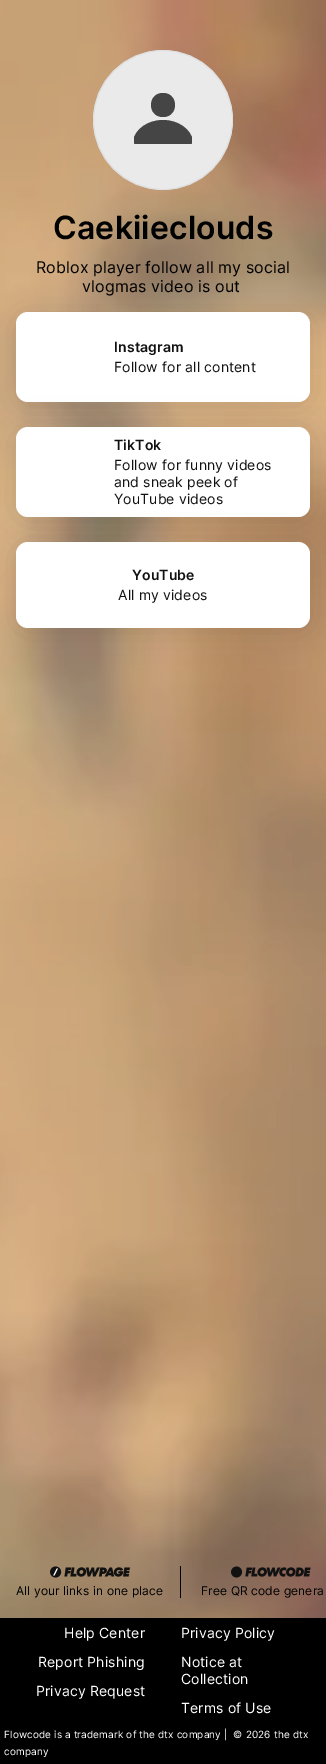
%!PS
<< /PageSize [326 1764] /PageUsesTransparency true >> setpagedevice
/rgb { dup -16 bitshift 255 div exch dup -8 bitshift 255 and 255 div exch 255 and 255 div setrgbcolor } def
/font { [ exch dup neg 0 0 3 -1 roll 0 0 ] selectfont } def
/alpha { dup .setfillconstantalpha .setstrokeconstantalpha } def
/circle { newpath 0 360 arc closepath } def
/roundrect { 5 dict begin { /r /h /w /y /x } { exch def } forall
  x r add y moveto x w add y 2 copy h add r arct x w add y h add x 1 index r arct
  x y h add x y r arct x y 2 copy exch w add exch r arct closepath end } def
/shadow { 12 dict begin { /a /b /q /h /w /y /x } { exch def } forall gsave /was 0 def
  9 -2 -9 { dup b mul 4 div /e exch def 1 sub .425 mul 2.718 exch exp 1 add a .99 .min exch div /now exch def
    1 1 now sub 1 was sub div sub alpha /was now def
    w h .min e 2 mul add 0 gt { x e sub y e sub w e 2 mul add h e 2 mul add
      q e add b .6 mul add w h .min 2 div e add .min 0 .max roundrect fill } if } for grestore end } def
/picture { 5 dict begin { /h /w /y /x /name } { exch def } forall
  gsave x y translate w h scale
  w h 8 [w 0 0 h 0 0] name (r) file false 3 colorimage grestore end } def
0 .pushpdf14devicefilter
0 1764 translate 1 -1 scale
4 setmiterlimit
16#FFFFFF rgb
0 0 326 1764 rectfill
(pic1.raw) 0 0 326 1618 picture
16#EAEAEA rgb
163 120 69.5 circle fill
gsave
93 50 140 140 70 roundrect clip newpath
16#DEDFE0 rgb
1.1 setlinewidth
163 120 69.5 circle stroke
grestore
gsave
134 91 58 58 rectclip
16#454545 rgb
163 117 moveto 179 117 179 93 163 93 curveto 147 93 147 117 163 117 curveto closepath 133 141 moveto 135 129 148 120 163 120 curveto 178 120 191 129 193 141 curveto 193 143 192 144 190 144 curveto 136 144 lineto 134 144 133 143 133 141 curveto closepath eofill
grestore
/Inter-SemiBold 32 font
16#000000 rgb
53 239 moveto 0.15 0 (Caekiieclouds) ashow
/Inter-Regular 16 font
36 273 moveto 0.15 0 (Roblox player follow all my social) ashow
82 292 moveto 0.15 0 (vlogmas video is out) ashow
16 315 294 90 12 15 0.1 shadow
16#FFFFFF rgb
16 312 294 90 12 roundrect fill
/Inter-SemiBold 14 font
16#111111 rgb
114 352 moveto 0.15 0 (Instagram) ashow
/Inter-Regular 14 font
114 372 moveto 0.15 0 (Follow for all content) ashow
16#000000 rgb
16 430 294 90 12 15 0.1 shadow
16#FFFFFF rgb
16 427 294 90 12 roundrect fill
/Inter-SemiBold 14 font
16#111111 rgb
114 450 moveto 0.15 0 (TikTok) ashow
/Inter-Regular 14 font
114 470 moveto 0.15 0 (Follow for funny videos) ashow
114 487 moveto 0.15 0 (and sneak peek of) ashow
114 504 moveto 0.15 0 (YouTube videos) ashow
16#000000 rgb
16 545 294 86 12 15 0.1 shadow
16#FFFFFF rgb
16 542 294 86 12 roundrect fill
/Inter-SemiBold 14 font
16#111111 rgb
132 580 moveto 0.15 0 (YouTube) ashow
/Inter-Regular 14 font
118 600 moveto 0.15 0 (All my videos) ashow
(pic2.raw) 50 1566 80 12 picture
/Inter-Regular 12 font
16#000000 rgb
16 1595 moveto 0.15 0 (All your links in one place) ashow
180 1566 1 32 rectfill
(pic3.raw) 231 1566 80 12 picture
201 1595 moveto 0.15 0 (Free QR code genera) ashow
0 1618 326 146 rectfill
/Inter-Regular 14 font
16#FFFFFF rgb
64 1638 moveto 0.15 0 (Help Center) ashow
38 1667 moveto 0.15 0 (Report Phishing) ashow
36 1696 moveto 0.15 0 (Privacy Request) ashow
181 1638 moveto 0.15 0 (Privacy Policy) ashow
181 1667 moveto 0.15 0 (Notice at) ashow
181 1684 moveto 0.15 0 (Collection) ashow
181 1713 moveto 0.15 0 (Terms of Use) ashow
/Inter-Regular 10 font
4 1738 moveto 0.15 0 (Flowcode is a trademark of the dtx company |  © 2026 the dtx) ashow
4 1755 moveto 0.15 0 (company) ashow
.poppdf14devicefilter showpage
